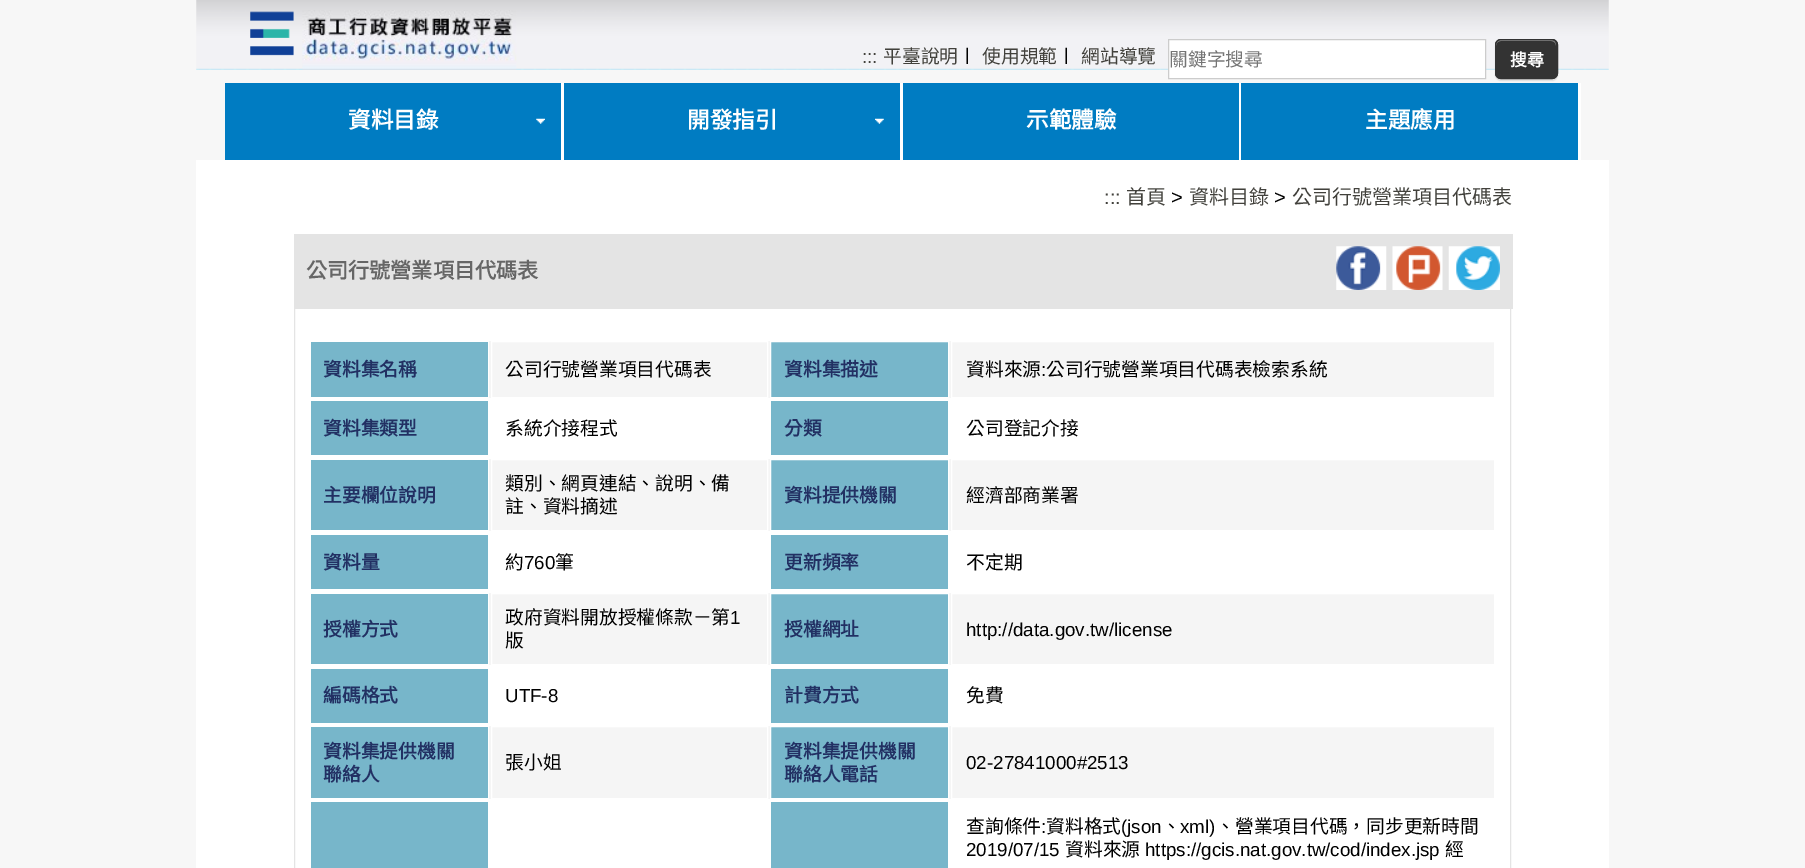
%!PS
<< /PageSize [1805 868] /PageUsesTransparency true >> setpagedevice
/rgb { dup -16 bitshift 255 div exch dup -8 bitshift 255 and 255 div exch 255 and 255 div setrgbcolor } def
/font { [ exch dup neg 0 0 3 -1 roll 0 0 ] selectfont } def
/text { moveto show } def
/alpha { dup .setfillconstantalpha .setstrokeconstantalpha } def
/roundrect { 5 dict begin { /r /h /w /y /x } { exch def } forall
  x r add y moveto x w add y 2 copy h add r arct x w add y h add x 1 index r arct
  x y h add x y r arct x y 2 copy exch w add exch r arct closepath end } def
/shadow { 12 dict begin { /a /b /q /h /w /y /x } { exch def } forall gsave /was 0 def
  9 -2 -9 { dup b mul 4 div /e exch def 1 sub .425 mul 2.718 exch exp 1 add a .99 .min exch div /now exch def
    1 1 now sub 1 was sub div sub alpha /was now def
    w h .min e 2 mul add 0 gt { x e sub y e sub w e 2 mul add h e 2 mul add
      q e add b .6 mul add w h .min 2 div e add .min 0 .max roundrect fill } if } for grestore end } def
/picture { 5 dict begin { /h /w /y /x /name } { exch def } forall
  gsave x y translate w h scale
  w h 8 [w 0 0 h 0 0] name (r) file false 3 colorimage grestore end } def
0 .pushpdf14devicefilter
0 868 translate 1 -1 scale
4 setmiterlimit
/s1 { /LiberationSans-Regular 18.75 font 16#42413C rgb } def
/s2 { /NotoSansCJKTC-Regular 18.75 font 16#42413C rgb } def
/s3 { /NotoSansCJKTC-Regular 18.75 font 16#000000 rgb } def
/s4 { /NotoSansCJKTC-Regular 18.75 font 16#757575 rgb } def
/s5 { /NotoSansCJKTC-Bold 17 font 16#FFFFFF rgb } def
/s6 { /NotoSansCJKTC-Bold 22.5 font 16#FFFFFF rgb } def
/s7 { /LiberationSans-Regular 20 font 16#42413C rgb } def
/s8 { /NotoSansCJKTC-Regular 20 font 16#42413C rgb } def
/s9 { /LiberationSans-Regular 20 font 16#000000 rgb } def
/s10 { /NotoSansCJKTC-Bold 21.1 font 16#666666 rgb } def
/s11 { /NotoSansCJKTC-Bold 18.75 font 16#223063 rgb } def
/s12 { /LiberationSans-Regular 18.75 font 16#000000 rgb } def
16#F7F7F7 rgb
0 0 1805 868 rectfill
(pic1.raw) 196 0 1413 70 picture
(pic2.raw) 250 11 44 45 picture
(pic3.raw) 302 10 215 60 picture
s1
(:::) 862 63 text
s2
(平臺說明) 883 63 text
s3
(〡) 958 63 text
s2
(使用規範) 982 63 text
s3
(〡) 1057 63 text
s2
(網站導覽) 1081 63 text
16#FFFFFF rgb
1168.5 39.5 moveto 1485.5 39.5 lineto 1485.5 78.5 lineto 1168.5 78.5 lineto closepath gsave fill grestore
16#CCCCCC rgb
stroke
s4
(關鍵字搜尋) 1169 66 text
16#000000 rgb
1495 41 63 40 6 0.5 0.1 shadow
16#333333 rgb
1495 39 63 40 6 roundrect fill
16#858585 rgb
1501 41 moveto 1551 41 lineto 1554 41 1556 43 1556 46 curveto 1556 38 1549 40 1543 40 curveto 1509 40 lineto 1503 40 1496 38 1496 46 curveto 1496 43 1498 41 1501 41 curveto closepath fill
16#333333 rgb
1495.5 39.5 62 39 5.5 roundrect stroke
s5
(搜尋) 1510 66 text
16#007CC2 rgb
225 83 336 77 rectfill
(pic4.raw) 536 118 9 6 picture
16#FFFFFF rgb
561 83 3 77 rectfill
s6
(資料目錄) 348 128 text
16#007CC2 rgb
564 83 336 77 rectfill
(pic5.raw) 875 118 9 6 picture
16#FFFFFF rgb
900 83 3 77 rectfill
(開發指引) 687 128 text
16#007CC2 rgb
903 83 336 77 rectfill
16#FFFFFF rgb
1239 83 2 77 rectfill
(示範體驗) 1026 128 text
16#007CC2 rgb
1241 83 337 77 rectfill
16#FFFFFF rgb
1578 83 3 77 rectfill
(主題應用) 1365 128 text
196 160 1413 708 rectfill
s7
(:::) 1104 204 text
s8
(首頁) 1126 204 text
s9
(>) 1171 204 text
s8
(資料目錄) 1189 204 text
s9
(>) 1274 204 text
s8
(公司行號營業項目代碼表) 1292 204 text
16#E4E4E4 rgb
294.5 234.5 1216 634 rectstroke
295 234 1218 75 rectfill
s10
(公司行號營業項目代碼表) 306 278 text
(pic6.raw) 1336 246 51 44 picture
(pic7.raw) 1392 246 51 44 picture
(pic8.raw) 1448 246 52 44 picture
16#F5F5F5 rgb
489 341 1005 57 rectfill
16#77B6CA rgb
311 342 177 55 rectfill
s11
(資料集名稱) 323 376 text
16#FFFFFF rgb
491.5 341.5 276 56 rectstroke
s3
(公司行號營業項目代碼表) 505 376 text
16#77B6CA rgb
770.5 341.5 moveto 948.5 341.5 lineto 948.5 397.5 lineto 770.5 397.5 lineto closepath gsave fill grestore
16#FFFFFF rgb
stroke
s11
(資料集描述) 784 376 text
16#FFFFFF rgb
951.5 341.5 543 56 rectstroke
s3
(資料來源) 966 376 text
s12
(:) 1041 376 text
s3
(公司行號營業項目代碼表檢索系統) 1046 376 text
16#77B6CA rgb
311 401 177 54 rectfill
s11
(資料集類型) 323 435 text
s3
(系統介接程式) 505 435 text
16#77B6CA rgb
771 401 177 54 rectfill
s11
(分類) 784 435 text
s3
(公司登記介接) 966 435 text
16#F5F5F5 rgb
489 459 1005 72 rectfill
16#77B6CA rgb
311 460 177 70 rectfill
s11
(主要欄位說明) 323 502 text
16#FFFFFF rgb
491.5 459.5 276 71 rectstroke
s3
(類別、網頁連結、說明、備) 505 490 text
(註、資料摘述) 505 513 text
16#77B6CA rgb
770.5 459.5 moveto 948.5 459.5 lineto 948.5 530.5 lineto 770.5 530.5 lineto closepath gsave fill grestore
16#FFFFFF rgb
stroke
s11
(資料提供機關) 784 502 text
16#FFFFFF rgb
951.5 459.5 543 71 rectstroke
s3
(經濟部商業署) 966 502 text
16#77B6CA rgb
311 535 177 54 rectfill
s11
(資料量) 323 569 text
s3
(約) 505 569 text
s12
(760) 524 569 text
s3
(筆) 555 569 text
16#77B6CA rgb
771 535 177 54 rectfill
s11
(更新頻率) 784 569 text
s3
(不定期) 966 569 text
16#F5F5F5 rgb
489 593 1005 72 rectfill
16#77B6CA rgb
311 594 177 70 rectfill
s11
(授權方式) 323 636 text
16#FFFFFF rgb
491.5 593.5 276 71 rectstroke
s3
(政府資料開放授權條款－第) 505 624 text
s12
(1) 730 624 text
s3
(版) 505 647 text
16#77B6CA rgb
770.5 593.5 moveto 948.5 593.5 lineto 948.5 664.5 lineto 770.5 664.5 lineto closepath gsave fill grestore
16#FFFFFF rgb
stroke
s11
(授權網址) 784 636 text
16#FFFFFF rgb
951.5 593.5 543 71 rectstroke
s12
(http://data.gov.tw/license) 966 636 text
16#77B6CA rgb
311 669 177 54 rectfill
s11
(編碼格式) 323 702 text
s12
(UTF-8) 505 702 text
16#77B6CA rgb
771 669 177 54 rectfill
s11
(計費方式) 784 702 text
s3
(免費) 966 702 text
16#F5F5F5 rgb
489 726 1005 73 rectfill
16#77B6CA rgb
311 727 177 71 rectfill
s11
(資料集提供機關) 323 758 text
(聯絡人) 323 781 text
16#FFFFFF rgb
491.5 726.5 276 72 rectstroke
s3
(張小姐) 505 769 text
16#77B6CA rgb
770.5 726.5 moveto 948.5 726.5 lineto 948.5 798.5 lineto 770.5 798.5 lineto closepath gsave fill grestore
16#FFFFFF rgb
stroke
s11
(資料集提供機關) 784 758 text
(聯絡人電話) 784 781 text
16#FFFFFF rgb
951.5 726.5 543 72 rectstroke
s12
(02-27841000#2513) 966 769 text
16#77B6CA rgb
311 802 177 66 rectfill
771 802 177 66 rectfill
s3
(查詢條件) 966 833 text
s12
(:) 1041 833 text
s3
(資料格式) 1046 833 text
s12
(\(json) 1121 833 text
s3
(、) 1162 833 text
s12
(xml\)) 1180 833 text
s3
(、營業項目代碼，同步更新時間) 1216 833 text
s12
(2019/07/15) 966 856 text
s3
(資料來源) 1065 856 text
s12
(https://gcis.nat.gov.tw/cod/index.jsp) 1145 856 text
s3
(經) 1445 856 text
.poppdf14devicefilter showpage
